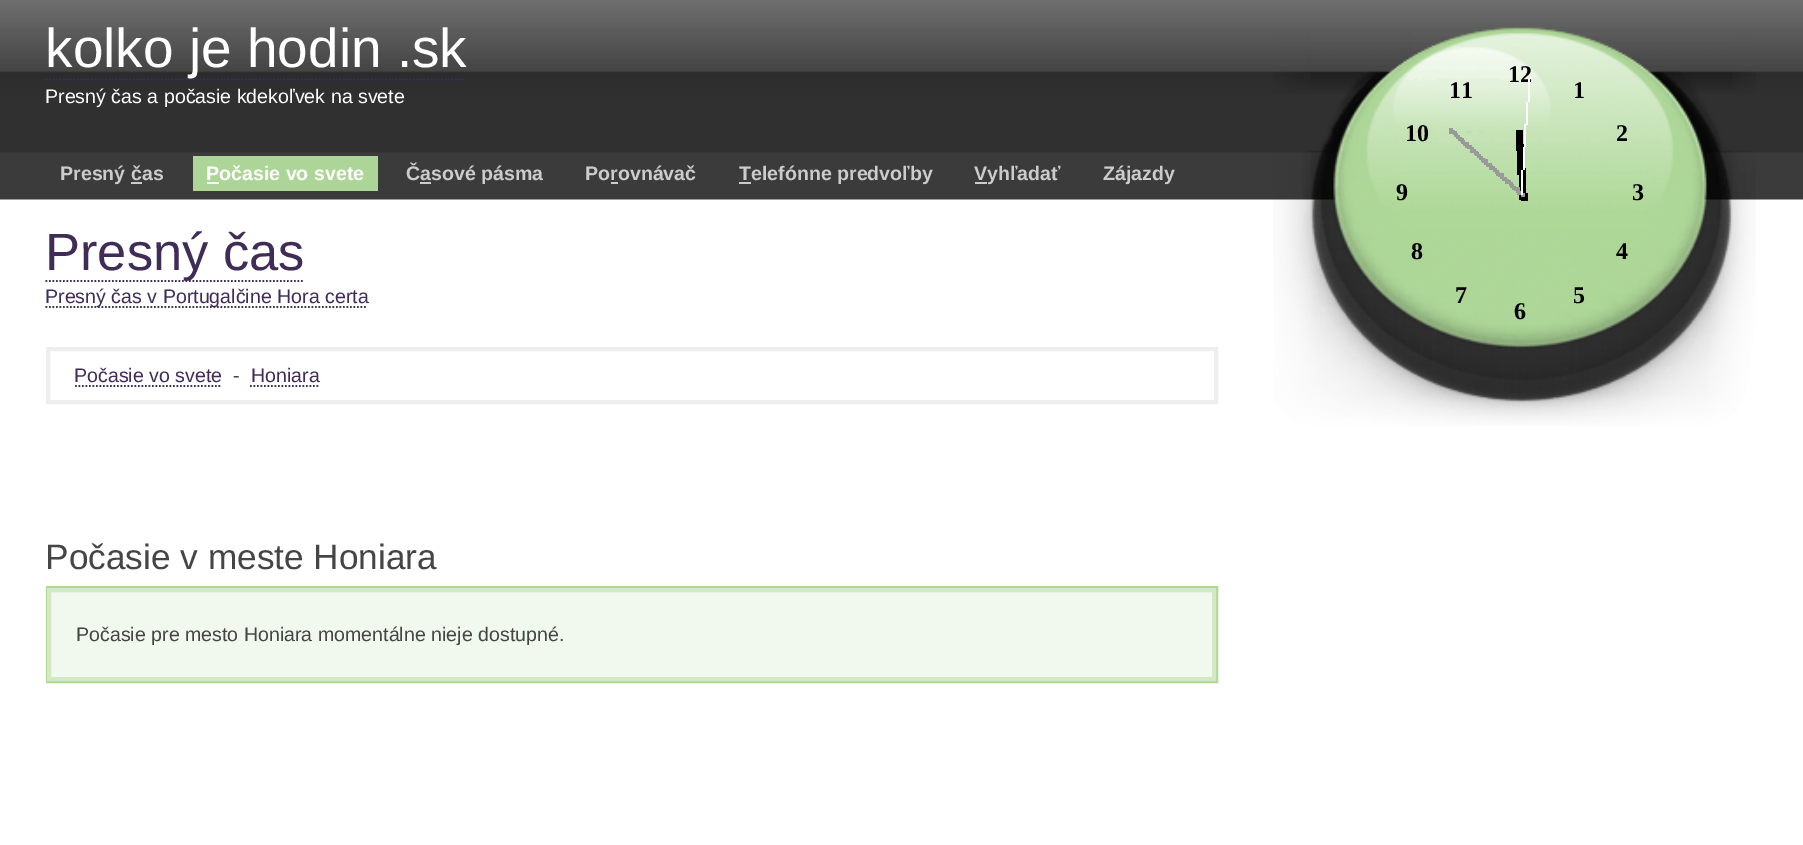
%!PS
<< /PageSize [1803 845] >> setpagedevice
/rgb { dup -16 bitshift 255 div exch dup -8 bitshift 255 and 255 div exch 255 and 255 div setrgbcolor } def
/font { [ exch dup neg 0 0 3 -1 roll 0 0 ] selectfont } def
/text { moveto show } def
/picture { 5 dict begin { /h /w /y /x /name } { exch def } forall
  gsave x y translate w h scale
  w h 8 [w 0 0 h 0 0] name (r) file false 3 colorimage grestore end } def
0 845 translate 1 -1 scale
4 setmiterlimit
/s1 { /LiberationSans-Regular 55 font 16#FFFFFF rgb } def
/s2 { /LiberationSans-Regular 19.6 font 16#FFFFFF rgb } def
/s3 { /LiberationSans-Bold 19.6 font 16#CCCCCC rgb } def
/s4 { /LiberationSans-Bold 19.6 font 16#FFFFFF rgb } def
/s5 { /LiberationSans-Regular 52.5 font 16#3F2C57 rgb } def
/s6 { /LiberationSans-Regular 19.6 font 16#3F2C57 rgb } def
/s7 { /LiberationSans-Regular 19.6 font 16#454545 rgb } def
/s8 { /LiberationSans-Regular 35.25 font 16#454545 rgb } def
/s9 { /LiberationSerif-Bold 24 font 16#000000 rgb } def
16#FFFFFF rgb
0 0 1803 845 rectfill
(pic1.raw) 0 0 1803 200 picture
16#3F2C57 rgb
1.8 setlinewidth
[1.75 1.75] 0 setdash
45.5 79.5 moveto 465.5 79.5 lineto stroke
s1
(kolko je hodin .sk) 45 67 text
s2
(Presný čas a počasie kdekoľvek na svete) 45 103 text
s3
(Presný čas) 60 180 text
131 182 11 2 rectfill
16#ADD597 rgb
193 156 185 35 rectfill
s4
(Počasie vo svete) 206 180 text
207 182 12 2 rectfill
s3
(Časové pásma) 406 180 text
420 182 11 2 rectfill
(Porovnávač) 585 180 text
611 182 7 2 rectfill
739 182 12 2 rectfill
(Telefónne predvoľby) 739 180 text
975 182 12 2 rectfill
(Vyhľadať) 974 180 text
(Zájazdy) 1103 180 text
16#3F2C57 rgb
45.5 281 moveto 304.5 281 lineto stroke
s5
(Presný čas) 45 270 text
45.5 307 moveto 276.5 307 lineto stroke
s6
(Presný čas v Portugalčine Hora certa) 45 303 text
276.5 307 moveto 367.5 307 lineto stroke
16#EEEEEE rgb
4 setlinewidth
[] 0 setdash
48 349 1168 53 rectstroke
s6
(Počasie vo svete) 74 382 text
1.8 setlinewidth
[1.75 1.75] 0 setdash
75 386 moveto 222 386 lineto stroke
s7
(-) 233 382 text
s6
(Honiara) 251 382 text
250 386 moveto 318.5 386 lineto stroke
s8
(Počasie v meste Honiara) 45 569 text
16#AED898 rgb
2 setlinewidth
[] 0 setdash
47 587 1170 95 rectstroke
16#F1F8ED rgb
49 590 moveto 1214 590 lineto 1214 679 lineto 49 679 lineto closepath gsave fill grestore
16#D1EAC3 rgb
4 setlinewidth
stroke
s7
(Počasie pre mesto Honiara momentálne nieje dostupné.) 76 641 text
(pic2.raw) 1273 27 483 399 picture
s9
(12) 1508 82 text
16#FFFFFF rgb
1530 77 2 2 rectfill
s9
(11) 1449 98 text
16#FFFFFF rgb
1528 79 2 23 rectfill
s9
(1) 1573 98 text
16#FFFFFF rgb
1526 102 2 23 rectfill
s9
(10) 1405 141 text
1521 193 7 8 rectfill
1519 187 7 13 rectfill
16#999999 rgb
1517 191 4 4 rectfill
1516 187 4 6 rectfill
1514 187 4 4 rectfill
1512 186 4 4 rectfill
1510 184 4 4 rectfill
1509 182 4 4 rectfill
1507 180 4 4 rectfill
1505 179 4 5 rectfill
1502 177 5 4 rectfill
1500 173 4 6 rectfill
1498 173 4 4 rectfill
1496 172 4 4 rectfill
1495 170 4 4 rectfill
1493 168 4 4 rectfill
1491 166 4 4 rectfill
1489 165 4 5 rectfill
1486 163 6 4 rectfill
1484 159 4 6 rectfill
1482 159 4 4 rectfill
1481 158 4 4 rectfill
1479 156 4 4 rectfill
1477 154 4 4 rectfill
1475 152 4 4 rectfill
1474 151 4 4 rectfill
1472 149 4 4 rectfill
1470 147 4 6 rectfill
1467 145 5 4 rectfill
1465 142 4 6 rectfill
1463 142 4 4 rectfill
1461 140 4 4 rectfill
1460 138 4 4 rectfill
1458 137 4 4 rectfill
1456 135 4 4 rectfill
1454 133 4 4 rectfill
1453 131 4 4 rectfill
1451 130 4 4 rectfill
1449 128 4 6 rectfill
16#FFFFFF rgb
1524 124 2 23 rectfill
s9
(2) 1616 141 text
1525 186 1 8 rectfill
1523 184 3 9 rectfill
1520 180 6 11 rectfill
1519 168 7 19 rectfill
1517 163 7 12 rectfill
1517 145 6 25 rectfill
1517 144 7 8 rectfill
1516 130 7 21 rectfill
16#FFFFFF rgb
1523 147 2 23 rectfill
16#999999 rgb
1521 193 4 4 rectfill
16#FFFFFF rgb
1521 170 2 25 rectfill
s9
(9) 1396 200 text
(3) 1632 200 text
(8) 1411 259 text
(4) 1616 259 text
(7) 1455 303 text
(5) 1573 303 text
(6) 1514 319 text
showpage
